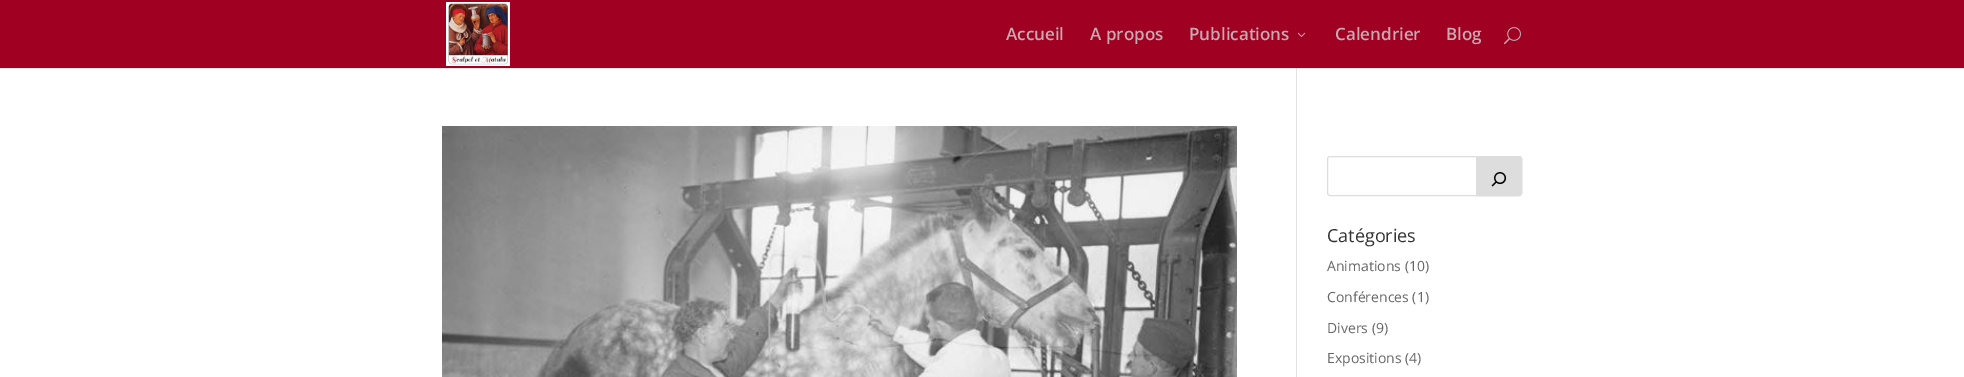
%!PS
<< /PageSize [1964 377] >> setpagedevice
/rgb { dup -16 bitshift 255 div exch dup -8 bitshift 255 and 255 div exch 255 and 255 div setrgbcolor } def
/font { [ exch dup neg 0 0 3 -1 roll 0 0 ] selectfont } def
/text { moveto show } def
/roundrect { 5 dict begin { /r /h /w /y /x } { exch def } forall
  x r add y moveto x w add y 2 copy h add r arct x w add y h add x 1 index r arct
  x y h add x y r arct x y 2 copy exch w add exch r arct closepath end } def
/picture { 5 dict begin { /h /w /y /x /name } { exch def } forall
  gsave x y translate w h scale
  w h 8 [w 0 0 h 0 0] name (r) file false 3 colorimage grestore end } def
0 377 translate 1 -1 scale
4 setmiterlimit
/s1 { /OpenSans-SemiBold 17 font 16#C8A9B0 rgb } def
/s2 { /OpenSans-Regular 18 font 16#333333 rgb } def
/s3 { /OpenSans-Regular 14 font 16#666666 rgb } def
16#FFFFFF rgb
0 0 1964 377 rectfill
16#E6E6E6 rgb
0 68 1964 1 rectfill
16#A00022 rgb
0 0 1964 68 rectfill
(pic1.raw) 446 2 64 64 picture
s1
(Accueil) 1006 40 text
(A propos) 1090 40 text
(Publications) 1189 40 text
(pic2.raw) 1297 32 9 5 picture
(Calendrier) 1335 40 text
(Blog) 1446 40 text
(pic3.raw) 1504 27 17 18 picture
16#E2E2E2 rgb
1296 68 1 309 rectfill
16#CBCBCB rgb
1296 68 1 1 rectfill
(pic4.raw) 442 126 795 251 picture
16#DDDDDD rgb
1327.5 156.5 194 39 2.5 roundrect stroke
1476.5 156.5 moveto 1519 156.5 lineto 1520.5 156.5 1521.5 157.5 1521.5 159 curveto 1521.5 193 lineto 1521.5 194.5 1520.5 195.5 1519 195.5 curveto 1476.5 195.5 lineto closepath gsave fill grestore
stroke
(pic5.raw) 1491 172 16 15 picture
s2
(Catégories) 1327 242 text
s3
(Animations \(10\)) 1327 271 text
(Conférences \(1\)) 1327 302 text
(Divers \(9\)) 1327 333 text
(Expositions \(4\)) 1327 363 text
showpage
